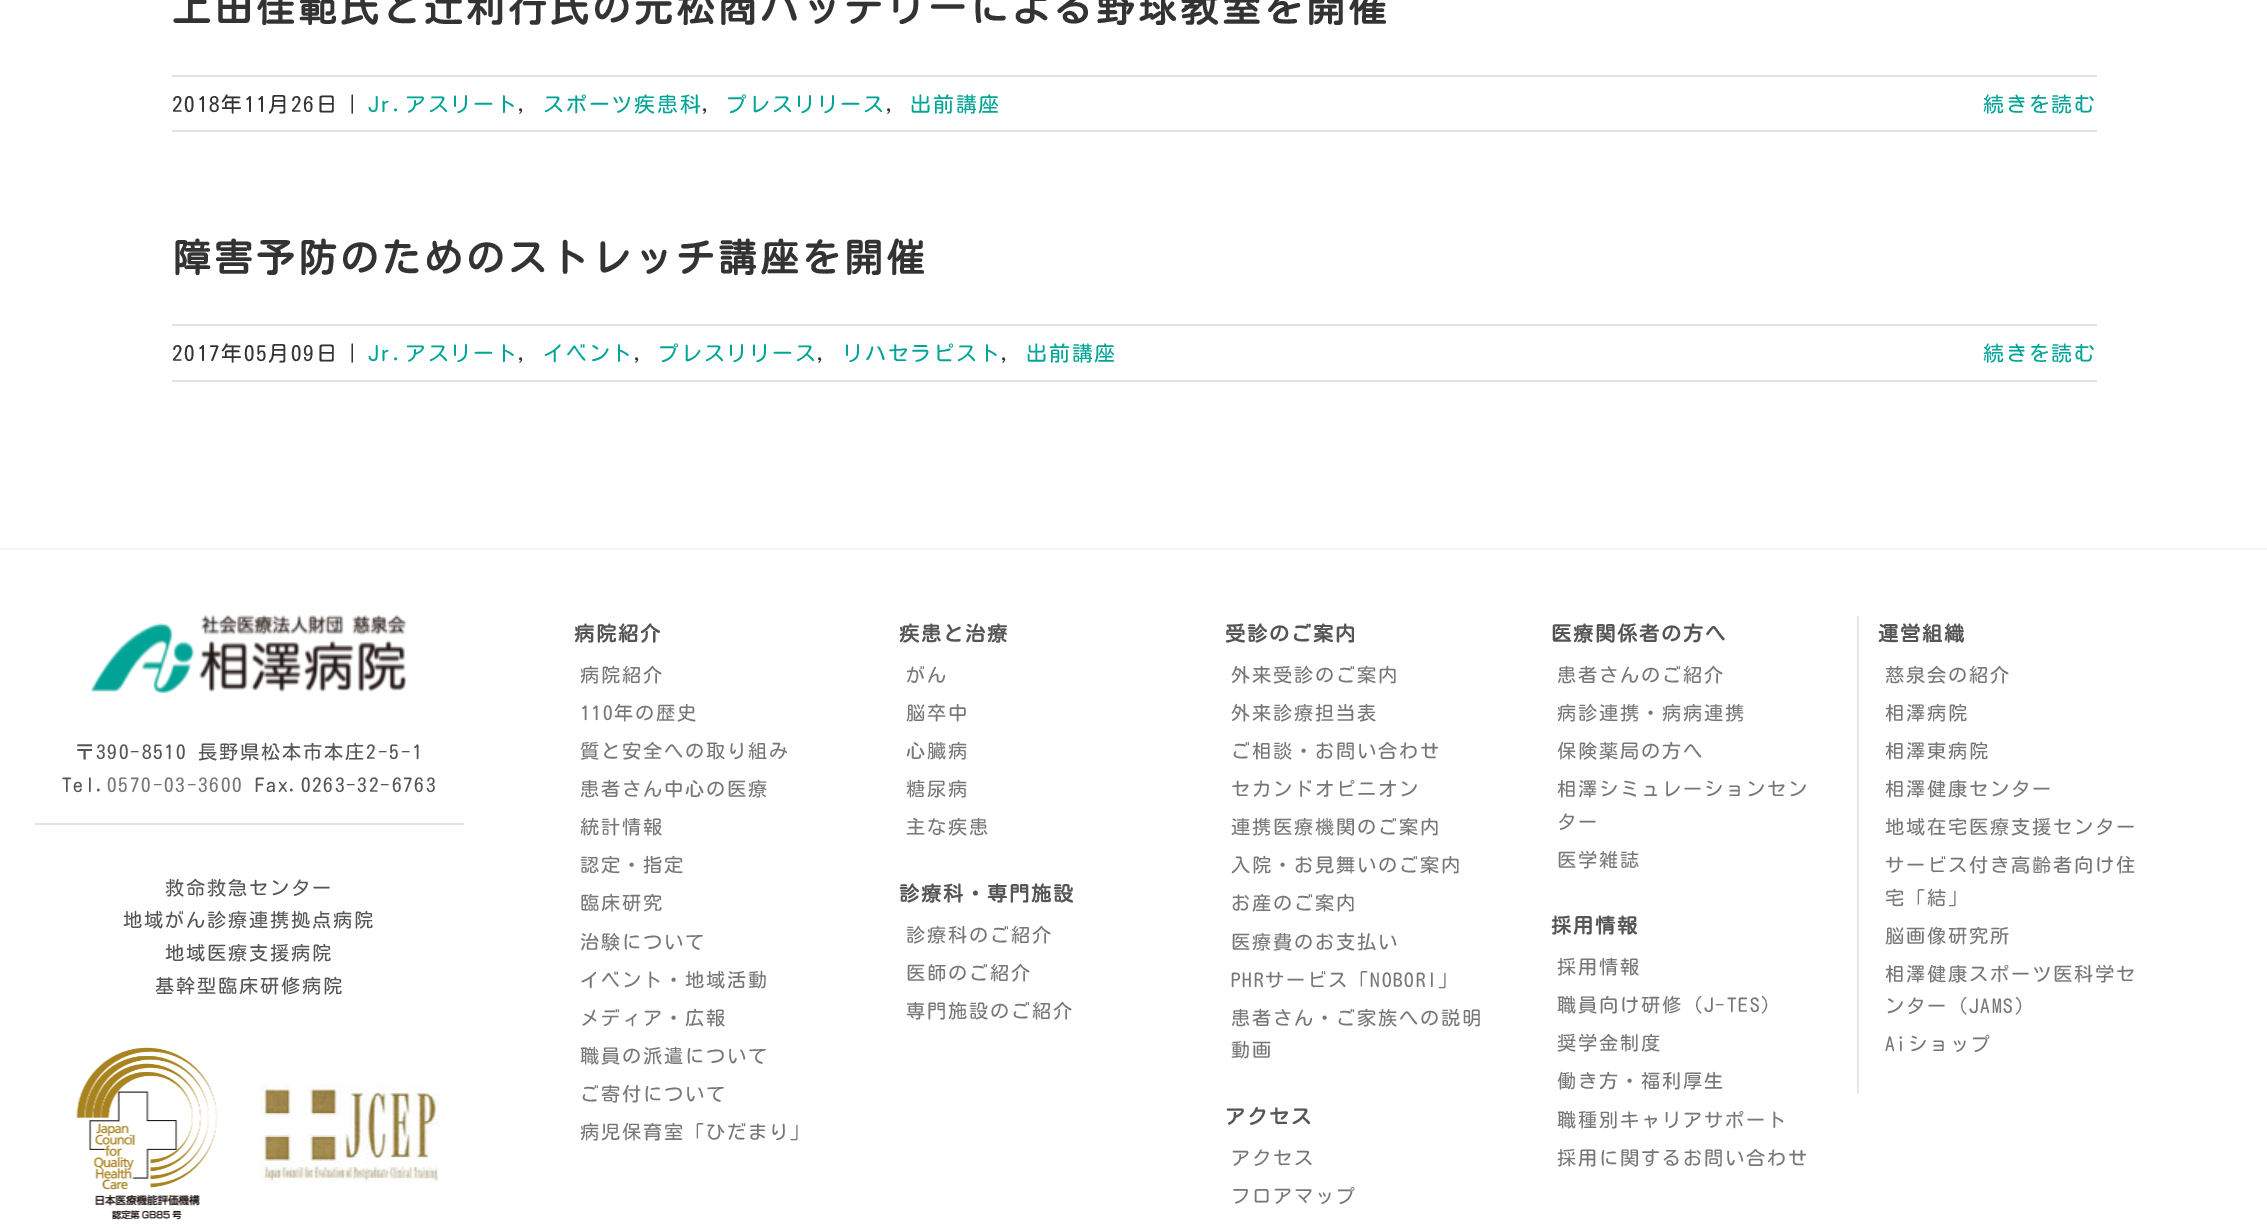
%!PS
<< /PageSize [2267 1228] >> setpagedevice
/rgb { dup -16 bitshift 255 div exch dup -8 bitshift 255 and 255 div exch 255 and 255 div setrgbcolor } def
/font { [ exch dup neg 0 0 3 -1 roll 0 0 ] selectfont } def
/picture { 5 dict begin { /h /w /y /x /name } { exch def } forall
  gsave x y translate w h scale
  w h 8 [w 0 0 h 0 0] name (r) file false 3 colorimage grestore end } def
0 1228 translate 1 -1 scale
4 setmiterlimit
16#FFFFFF rgb
0 0 2267 1228 rectfill
/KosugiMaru-Bold 38.5 font
16#333333 rgb
172 22 moveto 3.5 0 (上田佳範氏と辻利行氏の元松商バッテリーによる野球教室を開催) ashow
16#E2E2E2 rgb
172 75 1925 2 rectfill
172 130 1925 2 rectfill
/KosugiMaru-Regular 21 font
16#333333 rgb
172 112 moveto 1.75 0 (2018年11月26日) ashow
347 112 moveto 1.75 0 (|) ashow
16#00A496 rgb
368 112 moveto 1.75 0 (Jr.アスリート) ashow
16#333333 rgb
518 112 moveto 1.75 0 (,) ashow
16#00A496 rgb
543 112 moveto 1.75 0 (スポーツ疾患科) ashow
16#333333 rgb
702 112 moveto 1.75 0 (,) ashow
16#00A496 rgb
726 112 moveto 1.75 0 (プレスリリース) ashow
16#333333 rgb
886 112 moveto 1.75 0 (,) ashow
16#00A496 rgb
910 112 moveto 1.75 0 (出前講座) ashow
1983 112 moveto 1.75 0 (続きを読む) ashow
/KosugiMaru-Bold 38.5 font
16#333333 rgb
172 272 moveto 3.5 0 (障害予防のためのストレッチ講座を開催) ashow
16#E2E2E2 rgb
172 324 1925 2 rectfill
172 380 1925 2 rectfill
/KosugiMaru-Regular 21 font
16#333333 rgb
172 361 moveto 1.75 0 (2017年05月09日) ashow
347 361 moveto 1.75 0 (|) ashow
16#00A496 rgb
368 361 moveto 1.75 0 (Jr.アスリート) ashow
16#333333 rgb
518 361 moveto 1.75 0 (,) ashow
16#00A496 rgb
543 361 moveto 1.75 0 (イベント) ashow
16#333333 rgb
634 361 moveto 1.75 0 (,) ashow
16#00A496 rgb
658 361 moveto 1.75 0 (プレスリリース) ashow
16#333333 rgb
817 361 moveto 1.75 0 (,) ashow
16#00A496 rgb
842 361 moveto 1.75 0 (リハセラピスト) ashow
16#333333 rgb
1001 361 moveto 1.75 0 (,) ashow
16#00A496 rgb
1026 361 moveto 1.75 0 (出前講座) ashow
1983 361 moveto 1.75 0 (続きを読む) ashow
16#F5F6F4 rgb
0 548 2267 2 rectfill
(pic1.raw) 91 615 315 78 picture
/KosugiMaru-Regular 19.25 font
16#555555 rgb
75 759 moveto 1.75 0 (〒390-8510 長野県松本市本庄2-5-1) ashow
62 792 moveto 1.75 0 (Tel.) ashow
16#777777 rgb
107 792 moveto 1.75 0 (0570-03-3600) ashow
16#555555 rgb
255 792 moveto 1.75 0 (Fax.0263-32-6763) ashow
16#E2E2E2 rgb
35 823 429 2 rectfill
16#555555 rgb
165 895 moveto 1.75 0 (救命救急センター) ashow
123 927 moveto 1.75 0 (地域がん診療連携拠点病院) ashow
165 960 moveto 1.75 0 (地域医療支援病院) ashow
155 993 moveto 1.75 0 (基幹型臨床研修病院) ashow
(pic2.raw) 76 1047 142 173 picture
(pic3.raw) 259 1084 181 99 picture
/KosugiMaru-Bold 20.25 font
574 641 moveto 1.75 0 (病院紹介) ashow
/KosugiMaru-Regular 19.25 font
16#777777 rgb
580 682 moveto 1.75 0 (病院紹介) ashow
580 720 moveto 1.75 0 (110年の歴史) ashow
580 758 moveto 1.75 0 (質と安全への取り組み) ashow
580 796 moveto 1.75 0 (患者さん中心の医療) ashow
580 834 moveto 1.75 0 (統計情報) ashow
580 872 moveto 1.75 0 (認定・指定) ashow
580 910 moveto 1.75 0 (臨床研究) ashow
580 949 moveto 1.75 0 (治験について) ashow
580 987 moveto 1.75 0 (イベント・地域活動) ashow
580 1025 moveto 1.75 0 (メディア・広報) ashow
580 1063 moveto 1.75 0 (職員の派遣について) ashow
580 1101 moveto 1.75 0 (ご寄付について) ashow
580 1139 moveto 1.75 0 (病児保育室「ひだまり」) ashow
/KosugiMaru-Bold 20.25 font
16#555555 rgb
899 641 moveto 1.75 0 (疾患と治療) ashow
/KosugiMaru-Regular 19.25 font
16#777777 rgb
906 682 moveto 1.75 0 (がん) ashow
906 720 moveto 1.75 0 (脳卒中) ashow
906 758 moveto 1.75 0 (心臓病) ashow
906 796 moveto 1.75 0 (糖尿病) ashow
906 834 moveto 1.75 0 (主な疾患) ashow
/KosugiMaru-Bold 20.25 font
16#555555 rgb
899 901 moveto 1.75 0 (診療科・専門施設) ashow
/KosugiMaru-Regular 19.25 font
16#777777 rgb
906 942 moveto 1.75 0 (診療科のご紹介) ashow
906 980 moveto 1.75 0 (医師のご紹介) ashow
906 1018 moveto 1.75 0 (専門施設のご紹介) ashow
/KosugiMaru-Bold 20.25 font
16#555555 rgb
1225 641 moveto 1.75 0 (受診のご案内) ashow
/KosugiMaru-Regular 19.25 font
16#777777 rgb
1231 682 moveto 1.75 0 (外来受診のご案内) ashow
1231 720 moveto 1.75 0 (外来診療担当表) ashow
1231 758 moveto 1.75 0 (ご相談・お問い合わせ) ashow
1231 796 moveto 1.75 0 (セカンドオピニオン) ashow
1231 834 moveto 1.75 0 (連携医療機関のご案内) ashow
1231 872 moveto 1.75 0 (入院・お見舞いのご案内) ashow
1231 910 moveto 1.75 0 (お産のご案内) ashow
1231 949 moveto 1.75 0 (医療費のお支払い) ashow
1231 987 moveto 1.75 0 (PHRサービス「NOBORI」) ashow
1231 1025 moveto 1.75 0 (患者さん・ご家族への説明) ashow
1231 1057 moveto 1.75 0 (動画) ashow
/KosugiMaru-Bold 20.25 font
16#555555 rgb
1225 1124 moveto 1.75 0 (アクセス) ashow
/KosugiMaru-Regular 19.25 font
16#777777 rgb
1231 1165 moveto 1.75 0 (アクセス) ashow
1231 1203 moveto 1.75 0 (フロアマップ) ashow
/KosugiMaru-Bold 20.25 font
16#555555 rgb
1551 641 moveto 1.75 0 (医療関係者の方へ) ashow
/KosugiMaru-Regular 19.25 font
16#777777 rgb
1557 682 moveto 1.75 0 (患者さんのご紹介) ashow
1557 720 moveto 1.75 0 (病診連携・病病連携) ashow
1557 758 moveto 1.75 0 (保険薬局の方へ) ashow
1557 796 moveto 1.75 0 (相澤シミュレーションセン) ashow
1557 829 moveto 1.75 0 (ター) ashow
1557 867 moveto 1.75 0 (医学雑誌) ashow
/KosugiMaru-Bold 20.25 font
16#555555 rgb
1551 933 moveto 1.75 0 (採用情報) ashow
/KosugiMaru-Regular 19.25 font
16#777777 rgb
1557 974 moveto 1.75 0 (採用情報) ashow
1557 1012 moveto 1.75 0 (職員向け研修（J-TES）) ashow
1557 1050 moveto 1.75 0 (奨学金制度) ashow
1557 1088 moveto 1.75 0 (働き方・福利厚生) ashow
1557 1127 moveto 1.75 0 (職種別キャリアサポート) ashow
1557 1165 moveto 1.75 0 (採用に関するお問い合わせ) ashow
16#E7E6E6 rgb
1857 616 2 478 rectfill
/KosugiMaru-Bold 20.25 font
16#555555 rgb
1878 641 moveto 1.75 0 (運営組織) ashow
/KosugiMaru-Regular 19.25 font
16#777777 rgb
1885 682 moveto 1.75 0 (慈泉会の紹介) ashow
1885 720 moveto 1.75 0 (相澤病院) ashow
1885 758 moveto 1.75 0 (相澤東病院) ashow
1885 796 moveto 1.75 0 (相澤健康センター) ashow
1885 834 moveto 1.75 0 (地域在宅医療支援センター) ashow
1885 872 moveto 1.75 0 (サービス付き高齢者向け住) ashow
1885 905 moveto 1.75 0 (宅「結」) ashow
1885 943 moveto 1.75 0 (脳画像研究所) ashow
1885 981 moveto 1.75 0 (相澤健康スポーツ医科学セ) ashow
1885 1013 moveto 1.75 0 (ンター（JAMS）) ashow
1885 1051 moveto 1.75 0 (Aiショップ) ashow
showpage
